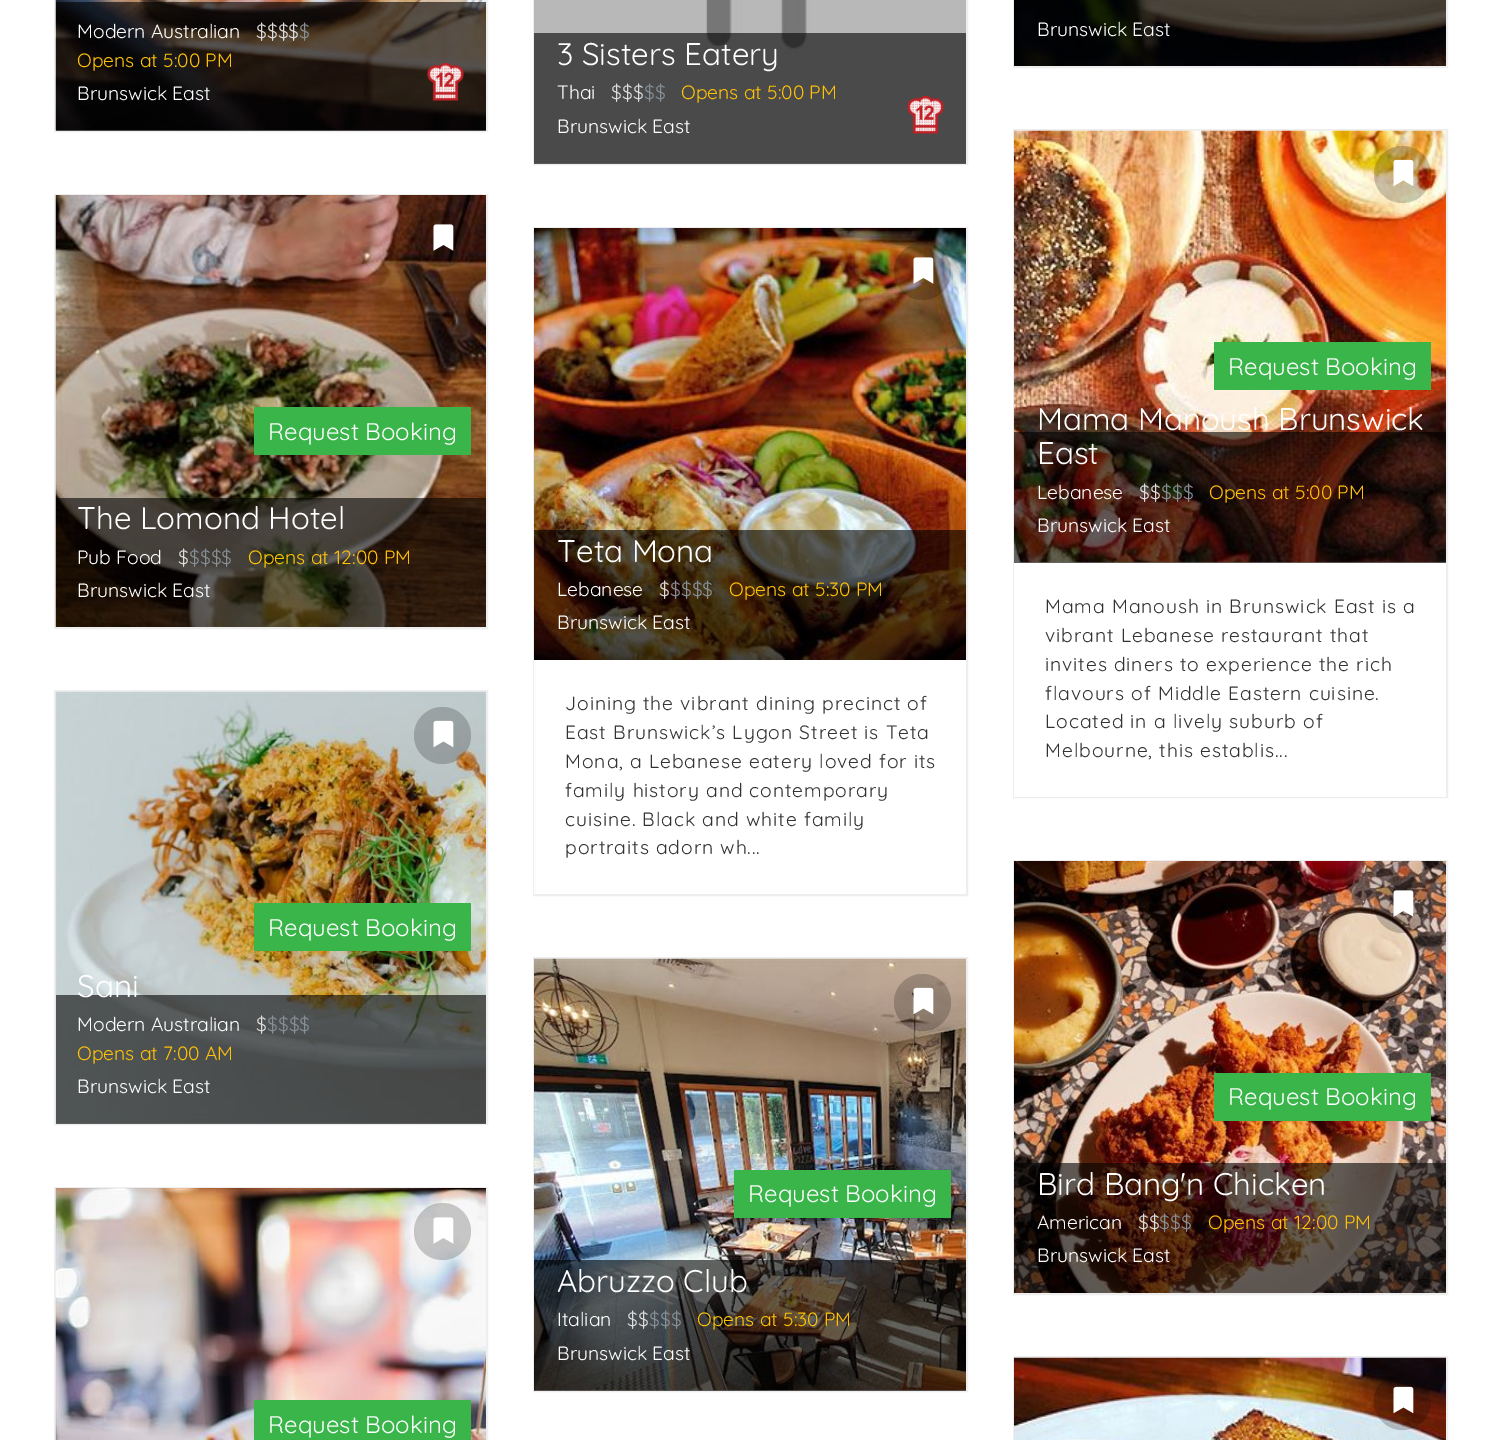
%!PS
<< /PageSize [1501 1440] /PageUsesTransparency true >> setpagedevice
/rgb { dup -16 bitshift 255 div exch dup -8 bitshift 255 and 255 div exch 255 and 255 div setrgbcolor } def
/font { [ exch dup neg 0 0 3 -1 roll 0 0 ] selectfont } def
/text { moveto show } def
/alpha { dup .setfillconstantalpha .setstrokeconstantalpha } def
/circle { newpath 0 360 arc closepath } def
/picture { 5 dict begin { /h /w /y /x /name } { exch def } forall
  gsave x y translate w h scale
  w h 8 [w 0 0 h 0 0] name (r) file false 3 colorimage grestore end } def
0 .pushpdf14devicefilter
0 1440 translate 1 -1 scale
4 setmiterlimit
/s1 { /Quicksand-Light 19.25 font 16#FFFFFF rgb } def
/s2 { /Quicksand-Light 19.25 font 16#DDDDDD rgb } def
/s3 { /Quicksand-Light 19.25 font 16#868E96 rgb } def
/s4 { /Quicksand-Light 19.25 font 16#FFC107 rgb } def
/s5 { /Quicksand-Light 31.25 font 16#FFFFFF rgb } def
/s6 { /Quicksand-Light 24 font 16#FFFFFF rgb } def
16#FFFFFF rgb
0 0 1501 1440 rectfill
16#EEEEEE rgb
2 setlinewidth
55 -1 432 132 rectstroke
(pic1.raw) 55 0 431 131 picture
0.6 alpha
16#000000 rgb
56 2 430 129 rectfill
1 alpha
s1
(Modern Australian) 77 38 text
s2
($$$$) 256 38 text
s3
($) 299 38 text
s4
(Opens at 5:00 PM) 77 67 text
s1
(Brunswick East) 77 100 text
(pic2.raw) 427 63 37 38 picture
16#EEEEEE rgb
534 -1 433 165 rectstroke
(pic3.raw) 534 0 432 164 picture
0.6 alpha
16#000000 rgb
534 33 432 131 rectfill
1 alpha
s5
(3 Sisters Eatery) 557 65 text
s1
(Thai) 557 99 text
s2
($$$) 611 99 text
s3
($$) 644 99 text
s4
(Opens at 5:00 PM) 681 99 text
s1
(Brunswick East) 557 133 text
(pic4.raw) 907 96 37 38 picture
16#EEEEEE rgb
1014 -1 433 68 rectstroke
(pic5.raw) 1014 0 432 66 picture
s1
(Brunswick East) 1037 36 text
16#EEEEEE rgb
55 195 432 433 rectstroke
(pic6.raw) 55 195 431 432 picture
0.2 alpha
16#000000 rgb
442.5 238.5 28.5 circle fill
1 alpha
(pic7.raw) 433 224 21 27 picture
16#39B54A rgb
254 407 217 48 rectfill
s6
(Request Booking) 268 440 text
0.6 alpha
16#000000 rgb
56 498 430 129 rectfill
1 alpha
s5
(The Lomond Hotel) 77 529 text
s1
(Pub Food) 77 564 text
s2
($) 178 564 text
s3
($$$$) 189 564 text
s4
(Opens at 12:00 PM) 248 564 text
s1
(Brunswick East) 77 597 text
16#EEEEEE rgb
1014 130 433 667 rectstroke
(pic8.raw) 1014 130 432 433 picture
0.2 alpha
16#000000 rgb
1402.5 174.5 28.5 circle fill
1 alpha
(pic9.raw) 1393 159 21 28 picture
16#39B54A rgb
1214 342 217 48 rectfill
s6
(Request Booking) 1228 375 text
0.6 alpha
16#000000 rgb
1014 432 432 131 rectfill
1 alpha
s5
(Mama Manoush Brunswick) 1037 430 text
(East) 1037 464 text
s1
(Lebanese) 1037 499 text
s2
($$) 1139 499 text
s3
($$$) 1161 499 text
s4
(Opens at 5:00 PM) 1209 499 text
s1
(Brunswick East) 1037 532 text
1014 563 432 234 rectfill
16#333333 rgb
1045 613 moveto 0.95 0 (Mama Manoush in Brunswick East is a) ashow
1045 642 moveto 0.95 0 (vibrant Lebanese restaurant that) ashow
1045 671 moveto 0.95 0 (invites diners to experience the rich) ashow
1045 700 moveto 0.95 0 (flavours of Middle Eastern cuisine.) ashow
1045 728 moveto 0.95 0 (Located in a lively suburb of) ashow
1045 757 moveto 0.95 0 (Melbourne, this establis...) ashow
16#EEEEEE rgb
534 228 433 667 rectstroke
(pic10.raw) 534 228 432 432 picture
0.2 alpha
16#000000 rgb
922.5 271.5 28.5 circle fill
1 alpha
(pic11.raw) 913 257 21 27 picture
0.6 alpha
534 530 432 130 rectfill
1 alpha
s5
(Teta Mona) 557 562 text
s1
(Lebanese) 557 596 text
s2
($) 659 596 text
s3
($$$$) 670 596 text
s4
(Opens at 5:30 PM) 729 596 text
s1
(Brunswick East) 557 629 text
534 660 1 234 rectfill
16#333333 rgb
565 710 moveto 0.95 0 (Joining the vibrant dining precinct of) ashow
565 739 moveto 0.95 0 (East Brunswick’s Lygon Street is Teta) ashow
565 768 moveto 0.95 0 (Mona, a Lebanese eatery loved for its) ashow
565 797 moveto 0.95 0 (family history and contemporary) ashow
565 826 moveto 0.95 0 (cuisine. Black and white family) ashow
565 854 moveto 0.95 0 (portraits adorn wh...) ashow
16#EEEEEE rgb
55 691 432 433 rectstroke
(pic12.raw) 55 691 431 433 picture
0.2 alpha
16#000000 rgb
442.5 735.5 28.5 circle fill
1 alpha
(pic13.raw) 433 720 21 28 picture
16#39B54A rgb
254 903 217 48 rectfill
s6
(Request Booking) 268 936 text
0.6 alpha
16#000000 rgb
56 995 430 129 rectfill
1 alpha
s5
(Sani) 77 997 text
s1
(Modern Australian) 77 1031 text
s2
($) 256 1031 text
s3
($$$$) 267 1031 text
s4
(Opens at 7:00 AM) 77 1060 text
s1
(Brunswick East) 77 1093 text
16#EEEEEE rgb
534 958 433 433 rectstroke
(pic14.raw) 534 958 432 433 picture
0.2 alpha
16#000000 rgb
922.5 1002.5 28.5 circle fill
1 alpha
(pic15.raw) 913 987 21 28 picture
16#39B54A rgb
734 1170 217 48 rectfill
s6
(Request Booking) 748 1202 text
0.6 alpha
16#000000 rgb
534 1260 432 131 rectfill
1 alpha
s5
(Abruzzo Club) 557 1292 text
s1
(Italian) 557 1326 text
s2
($$) 627 1326 text
s3
($$$) 649 1326 text
s4
(Opens at 5:30 PM) 697 1326 text
s1
(Brunswick East) 557 1360 text
16#EEEEEE rgb
1014 861 433 433 rectstroke
(pic16.raw) 1014 861 432 432 picture
0.2 alpha
16#000000 rgb
1402.5 904.5 28.5 circle fill
1 alpha
(pic17.raw) 1393 890 21 27 picture
16#39B54A rgb
1214 1073 217 48 rectfill
s6
(Request Booking) 1228 1105 text
0.6 alpha
16#000000 rgb
1014 1163 432 130 rectfill
1 alpha
s5
(Bird Bang'n Chicken) 1037 1195 text
s1
(American) 1037 1229 text
s2
($$) 1138 1229 text
s3
($$$) 1159 1229 text
s4
(Opens at 12:00 PM) 1208 1229 text
s1
(Brunswick East) 1037 1262 text
16#EEEEEE rgb
55 1188 432 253 rectstroke
(pic18.raw) 55 1188 431 252 picture
0.2 alpha
16#000000 rgb
442.5 1231.5 28.5 circle fill
1 alpha
(pic19.raw) 433 1217 21 27 picture
16#39B54A rgb
254 1400 217 40 rectfill
s6
(Request Booking) 268 1433 text
16#EEEEEE rgb
1014 1357 433 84 rectstroke
(pic20.raw) 1014 1357 432 83 picture
0.2 alpha
16#000000 rgb
1402.5 1401.5 28.5 circle fill
1 alpha
(pic21.raw) 1393 1386 21 28 picture
.poppdf14devicefilter showpage
